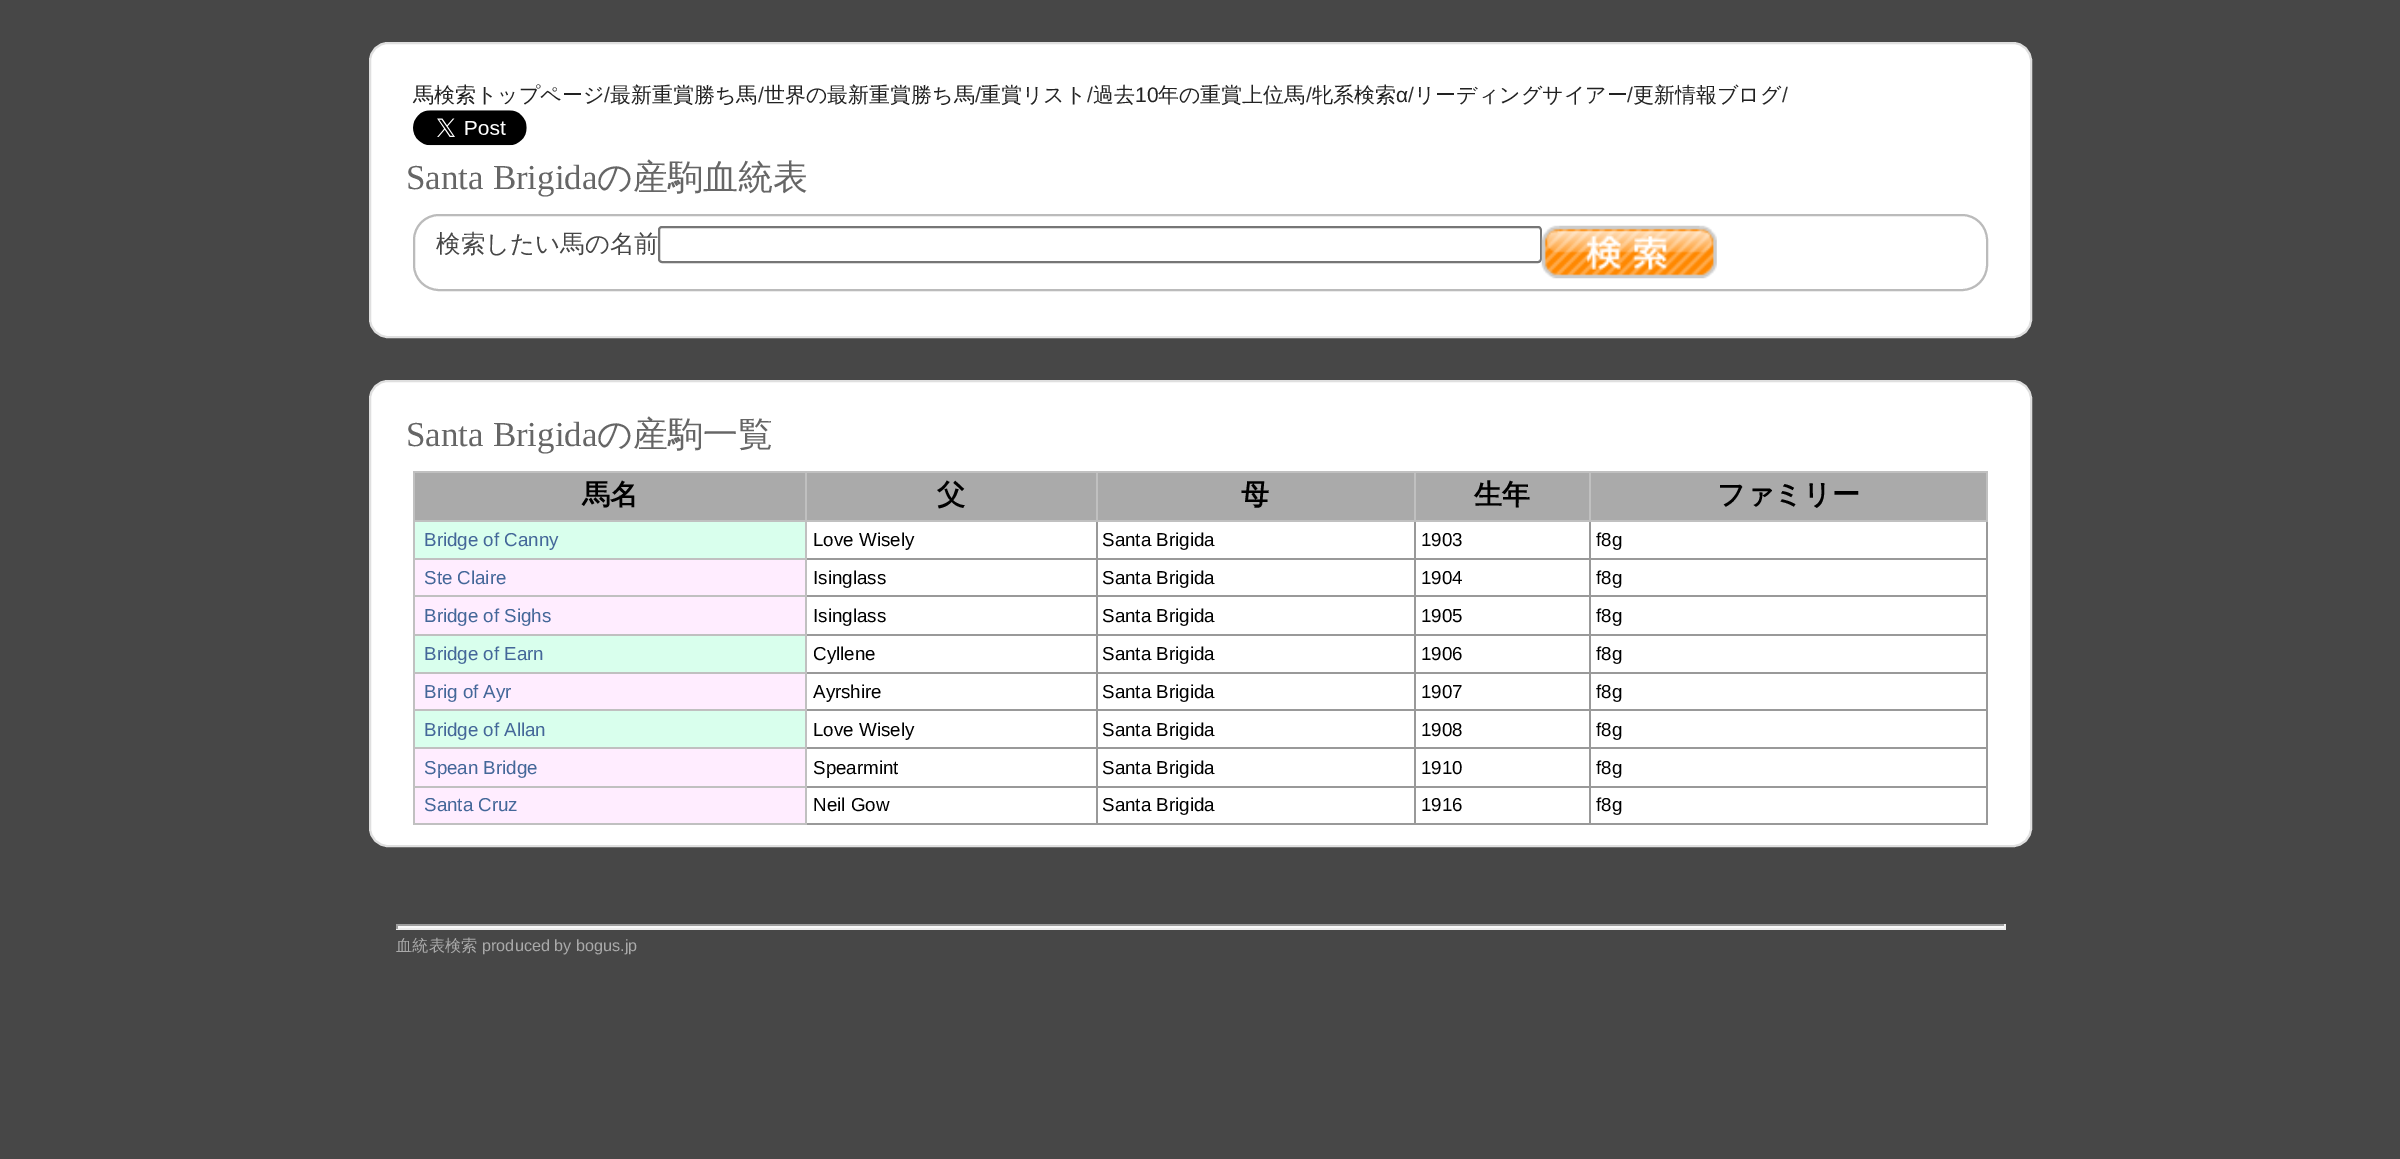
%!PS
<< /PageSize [2400 1159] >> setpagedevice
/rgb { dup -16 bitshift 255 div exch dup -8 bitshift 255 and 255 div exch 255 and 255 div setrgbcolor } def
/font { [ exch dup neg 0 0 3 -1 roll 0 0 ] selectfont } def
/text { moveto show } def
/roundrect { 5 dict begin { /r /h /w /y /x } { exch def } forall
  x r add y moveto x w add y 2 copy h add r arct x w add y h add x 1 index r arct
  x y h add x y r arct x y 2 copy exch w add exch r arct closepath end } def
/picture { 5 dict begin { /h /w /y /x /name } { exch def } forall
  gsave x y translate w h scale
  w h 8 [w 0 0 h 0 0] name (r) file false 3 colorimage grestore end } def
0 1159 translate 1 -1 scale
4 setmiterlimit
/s1 { /WenQuanYiZenHei-Medium 21 font 16#222222 rgb } def
/s2 { /LiberationSans-Regular 21 font 16#333333 rgb } def
/s3 { /LiberationSans-Regular 21 font 16#222222 rgb } def
/s4 { /LiberationSerif-Regular 35 font 16#666666 rgb } def
/s5 { /WenQuanYiZenHei-Medium 35 font 16#666666 rgb } def
/s6 { /WenQuanYiZenHei-Medium 24.5 font 16#464646 rgb } def
/s7 { /WenQuanYiZenHei-Bold 28 font 16#000000 rgb } def
/s8 { /LiberationSans-Regular 18.75 font 16#446799 rgb } def
/s9 { /LiberationSans-Regular 18.75 font 16#000000 rgb } def
/s10 { /WenQuanYiZenHei-Medium 16.25 font 16#AAAAAA rgb } def
/s11 { /LiberationSans-Regular 16.25 font 16#AAAAAA rgb } def
16#474747 rgb
0 0 2400 1159 rectfill
16#FFFFFF rgb
370 43 1661 294 18 roundrect gsave fill grestore
16#DFDFDF rgb
2 setlinewidth
stroke
s1
(馬検索トップページ) 413 102 text
s2
(/) 604 102 text
s1
(最新重賞勝ち馬) 610 102 text
s2
(/) 758 102 text
s1
(世界の最新重賞勝ち馬) 764 102 text
s2
(/) 975 102 text
s1
(重賞リスト) 980 102 text
s2
(/) 1087 102 text
s1
(過去) 1093 102 text
s3
(10) 1135 102 text
s1
(年の重賞上位馬) 1158 102 text
s2
(/) 1306 102 text
s1
(牝系検索) 1312 102 text
s3
(α) 1396 102 text
s2
(/) 1408 102 text
s1
(リーディングサイアー) 1414 102 text
s2
(/) 1627 102 text
s1
(更新情報ブログ) 1633 102 text
s2
(/) 1782 102 text
(pic1.raw) 413 110 114 36 picture
s4
(Santa Brigida) 406 189 text
s5
(の産駒血統表) 597 189 text
16#BBBBBB rgb
414 215 1573 75 25 roundrect stroke
s6
(検索したい馬の名前) 436 252 text
16#767676 rgb
659 227 882 35 3 roundrect stroke
(pic2.raw) 1541 225 176 54 picture
16#FFFFFF rgb
370 381 1661 465 18 roundrect gsave fill grestore
16#DFDFDF rgb
stroke
s4
(Santa Brigida) 406 446 text
s5
(の産駒一覧) 597 446 text
16#AAAAAA rgb
415 473 390 47 rectfill
16#C0C0C0 rgb
1589 471 399 2 rectfill
16#999999 rgb
1589 558 399 2 rectfill
1589 595 399 2 rectfill
1589 634 399 2 rectfill
1589 672 399 2 rectfill
1589 709 399 2 rectfill
1589 747 399 2 rectfill
1589 786 399 2 rectfill
1986 786 2 38 rectfill
1986 747 2 41 rectfill
1986 709 2 40 rectfill
1986 672 2 39 rectfill
1986 634 2 40 rectfill
1986 595 2 40 rectfill
1986 520 2 77 rectfill
16#C0C0C0 rgb
1986 471 2 51 rectfill
16#999999 rgb
1589 823 399 2 rectfill
1589 786 2 38 rectfill
1414 786 177 2 rectfill
1589 747 2 41 rectfill
1414 747 177 2 rectfill
1589 709 2 40 rectfill
1414 709 177 2 rectfill
1589 672 2 39 rectfill
1414 672 177 2 rectfill
1589 634 2 40 rectfill
1414 634 177 2 rectfill
1589 595 2 40 rectfill
1414 595 177 2 rectfill
1589 558 2 39 rectfill
1414 558 177 2 rectfill
1589 520 2 40 rectfill
16#C0C0C0 rgb
1589 520 399 2 rectfill
1589 471 2 51 rectfill
1414 471 177 2 rectfill
16#999999 rgb
1414 823 177 2 rectfill
1414 786 2 38 rectfill
1096 786 320 2 rectfill
1414 747 2 41 rectfill
1096 747 320 2 rectfill
1414 709 2 40 rectfill
1096 709 320 2 rectfill
1414 672 2 39 rectfill
1096 672 320 2 rectfill
1414 634 2 40 rectfill
1096 634 320 2 rectfill
1414 595 2 40 rectfill
1096 595 320 2 rectfill
1414 558 2 39 rectfill
1096 558 320 2 rectfill
1414 520 2 40 rectfill
16#C0C0C0 rgb
1414 520 177 2 rectfill
1414 471 2 51 rectfill
1096 471 320 2 rectfill
16#999999 rgb
1096 823 320 2 rectfill
1096 786 2 38 rectfill
1096 747 2 41 rectfill
1096 709 2 40 rectfill
1096 672 2 39 rectfill
1096 634 2 40 rectfill
1096 595 2 40 rectfill
1096 520 2 77 rectfill
16#C0C0C0 rgb
1096 520 320 2 rectfill
1096 471 2 51 rectfill
805 471 292 2 rectfill
413 520 394 2 rectfill
413 558 394 2 rectfill
413 595 394 2 rectfill
413 672 394 2 rectfill
413 709 394 2 rectfill
413 747 394 2 rectfill
413 786 394 2 rectfill
16#999999 rgb
805 823 292 2 rectfill
16#C0C0C0 rgb
805 786 2 38 rectfill
16#999999 rgb
805 786 292 2 rectfill
16#C0C0C0 rgb
805 747 2 41 rectfill
16#999999 rgb
805 747 292 2 rectfill
16#C0C0C0 rgb
805 709 2 40 rectfill
16#999999 rgb
805 709 292 2 rectfill
16#C0C0C0 rgb
805 672 2 39 rectfill
16#999999 rgb
805 672 292 2 rectfill
16#C0C0C0 rgb
805 634 2 40 rectfill
16#999999 rgb
805 634 292 2 rectfill
16#C0C0C0 rgb
805 595 2 40 rectfill
16#999999 rgb
805 595 292 2 rectfill
16#C0C0C0 rgb
805 558 2 39 rectfill
16#999999 rgb
805 558 292 2 rectfill
16#C0C0C0 rgb
805 520 2 40 rectfill
805 520 292 2 rectfill
805 471 2 51 rectfill
413 471 394 2 rectfill
413 823 394 2 rectfill
413 786 2 38 rectfill
413 747 2 41 rectfill
413 709 2 40 rectfill
413 634 2 77 rectfill
413 634 394 2 rectfill
413 595 2 40 rectfill
413 558 2 39 rectfill
413 520 2 40 rectfill
413 471 2 51 rectfill
s7
(馬名) 582 504 text
16#AAAAAA rgb
807 473 289 47 rectfill
s7
(父) 937 504 text
16#AAAAAA rgb
1098 473 316 47 rectfill
s7
(母) 1241 504 text
16#AAAAAA rgb
1416 473 173 47 rectfill
s7
(生年) 1474 504 text
16#AAAAAA rgb
1591 473 395 47 rectfill
s7
(ファミリー) 1717 504 text
16#D9FFED rgb
415 522 390 36 rectfill
s8
(Bridge of Canny) 424 546 text
s9
(Love Wisely) 813 546 text
(Santa Brigida) 1102 546 text
(1903) 1421 546 text
(f8g) 1596 546 text
16#FFEDFF rgb
415 560 390 35 rectfill
s8
(Ste Claire) 424 584 text
s9
(Isinglass) 813 584 text
(Santa Brigida) 1102 584 text
(1904) 1421 584 text
(f8g) 1596 584 text
16#FFEDFF rgb
415 597 390 37 rectfill
s8
(Bridge of Sighs) 424 622 text
s9
(Isinglass) 813 622 text
(Santa Brigida) 1102 622 text
(1905) 1421 622 text
(f8g) 1596 622 text
16#D9FFED rgb
415 636 390 36 rectfill
s8
(Bridge of Earn) 424 660 text
s9
(Cyllene) 813 660 text
(Santa Brigida) 1102 660 text
(1906) 1421 660 text
(f8g) 1596 660 text
16#FFEDFF rgb
415 674 390 35 rectfill
s8
(Brig of Ayr) 424 698 text
s9
(Ayrshire) 813 698 text
(Santa Brigida) 1102 698 text
(1907) 1421 698 text
(f8g) 1596 698 text
16#D9FFED rgb
415 711 390 36 rectfill
s8
(Bridge of Allan) 424 736 text
s9
(Love Wisely) 813 736 text
(Santa Brigida) 1102 736 text
(1908) 1421 736 text
(f8g) 1596 736 text
16#FFEDFF rgb
415 749 390 37 rectfill
s8
(Spean Bridge) 424 774 text
s9
(Spearmint) 813 774 text
(Santa Brigida) 1102 774 text
(1910) 1421 774 text
(f8g) 1596 774 text
16#FFEDFF rgb
415 788 390 35 rectfill
s8
(Santa Cruz) 424 811 text
s9
(Neil Gow) 813 811 text
(Santa Brigida) 1102 811 text
(1916) 1421 811 text
(f8g) 1596 811 text
16#FAFAFA rgb
396 926 1610 2 rectfill
16#9F9F9F rgb
396 924 1610 2 rectfill
16#EEEEEE rgb
2004 924 2 5 rectfill
396 928 1610 2 rectfill
16#9F9F9F rgb
396 924 2 5 rectfill
s10
(血統表検索) 396 951 text
s11
(produced by bogus.jp) 482 951 text
showpage
